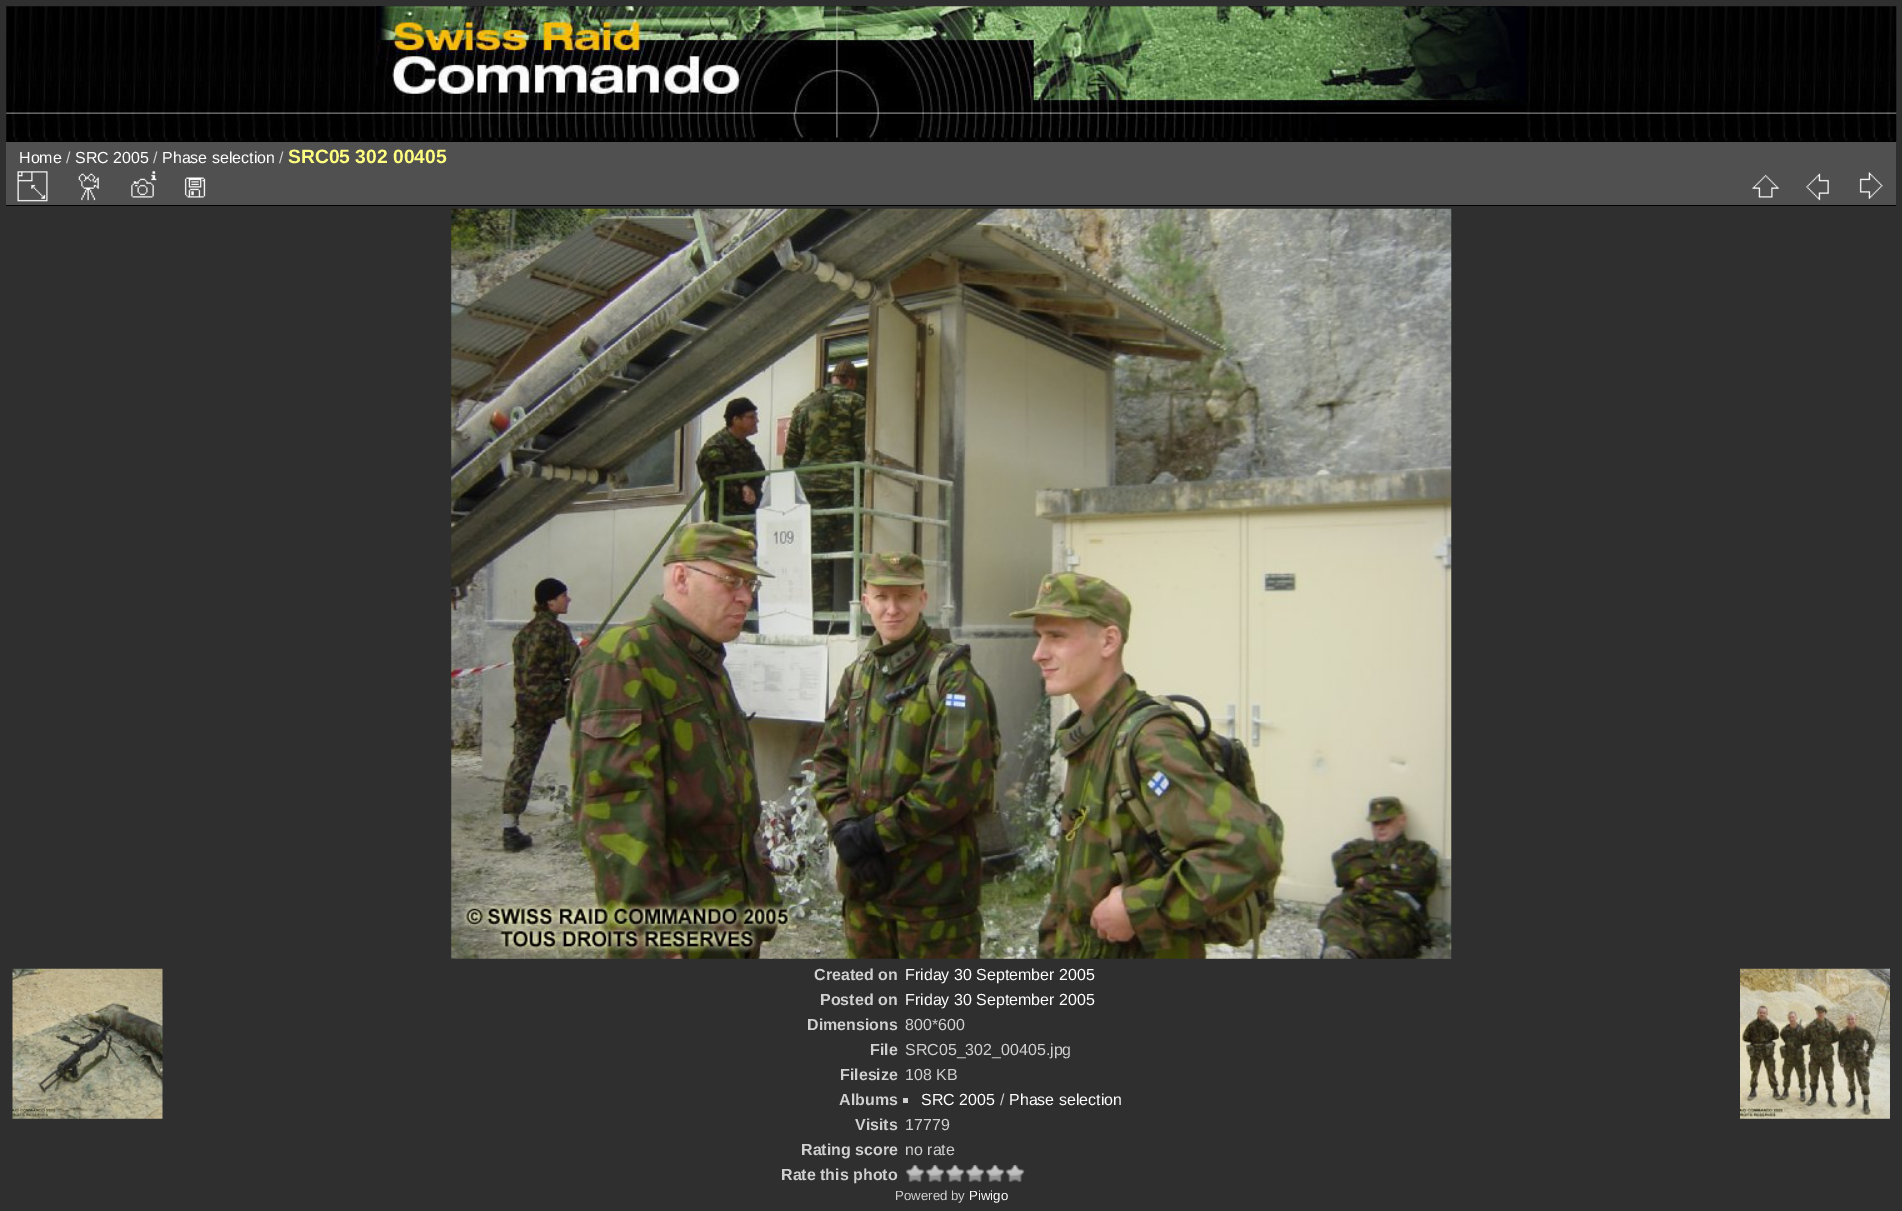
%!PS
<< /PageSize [1902 1211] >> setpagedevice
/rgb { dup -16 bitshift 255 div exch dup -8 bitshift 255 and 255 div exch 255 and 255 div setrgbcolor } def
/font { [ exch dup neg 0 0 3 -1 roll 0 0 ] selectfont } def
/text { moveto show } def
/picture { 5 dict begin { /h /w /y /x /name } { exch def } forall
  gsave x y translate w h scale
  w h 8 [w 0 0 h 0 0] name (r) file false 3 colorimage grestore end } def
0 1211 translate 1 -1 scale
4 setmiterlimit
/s1 { /LiberationSans-Regular 16 font 16#FFFFFF rgb } def
/s2 { /LiberationSans-Regular 16 font 16#D0D0D0 rgb } def
/s3 { /LiberationSans-Bold 19.25 font 16#FFFF80 rgb } def
/s4 { /LiberationSans-Bold 16 font 16#D0D0D0 rgb } def
/s5 { /LiberationSans-Regular 13.25 font 16#D0D0D0 rgb } def
/s6 { /LiberationSans-Regular 13.25 font 16#FFFFFF rgb } def
16#2F2F2F rgb
0 0 1902 1211 rectfill
(pic1.raw) 6 6 1891 136 picture
(pic2.raw) 376 6 1150 132 picture
16#505050 rgb
6 142 1890 63 rectfill
16#000000 rgb
6 205 1890 1 rectfill
(pic3.raw) 17 171 31 31 picture
(pic4.raw) 78 173 21 28 picture
(pic5.raw) 131 171 26 27 picture
(pic6.raw) 184 177 22 21 picture
(pic7.raw) 1752 174 27 24 picture
(pic8.raw) 1806 173 23 28 picture
(pic9.raw) 1859 172 24 27 picture
6 141 1890 1 rectfill
s1
(Home) 19 163 text
s2
(/) 66 163 text
s1
(SRC 2005) 75 163 text
s2
(/) 153 163 text
s1
(Phase selection) 162 163 text
s2
(/) 279 163 text
s3
(SRC05 302 00405) 288 163 text
(pic10.raw) 451 208 1001 751 picture
(pic11.raw) 12 968 151 151 picture
(pic12.raw) 1740 968 150 151 picture
s4
(Created on) 814 980 text
s1
(Friday 30 September 2005) 905 980 text
s4
(Posted on) 820 1005 text
s1
(Friday 30 September 2005) 905 1005 text
s4
(Dimensions) 807 1030 text
s2
(800*600) 905 1030 text
s4
(File) 870 1055 text
s2
(SRC05_302_00405.jpg) 905 1055 text
s4
(Filesize) 840 1080 text
s2
(108 KB) 905 1080 text
s4
(Albums) 839 1105 text
903 1098 5 5 rectfill
s1
(SRC 2005) 921 1105 text
s2
(/) 1000 1105 text
s1
(Phase selection) 1009 1105 text
s4
(Visits) 855 1130 text
s2
(17779) 905 1130 text
s4
(Rating score) 801 1155 text
s2
(no rate) 905 1155 text
s4
(Rate this photo) 781 1180 text
(pic13.raw) 905 1165 20 17 picture
(pic14.raw) 925 1165 20 17 picture
(pic14.raw) 945 1165 20 17 picture
(pic14.raw) 965 1165 20 17 picture
(pic14.raw) 985 1165 20 17 picture
(pic14.raw) 1005 1165 20 17 picture
s5
(Powered by) 895 1200 text
s6
(Piwigo) 969 1200 text
showpage
